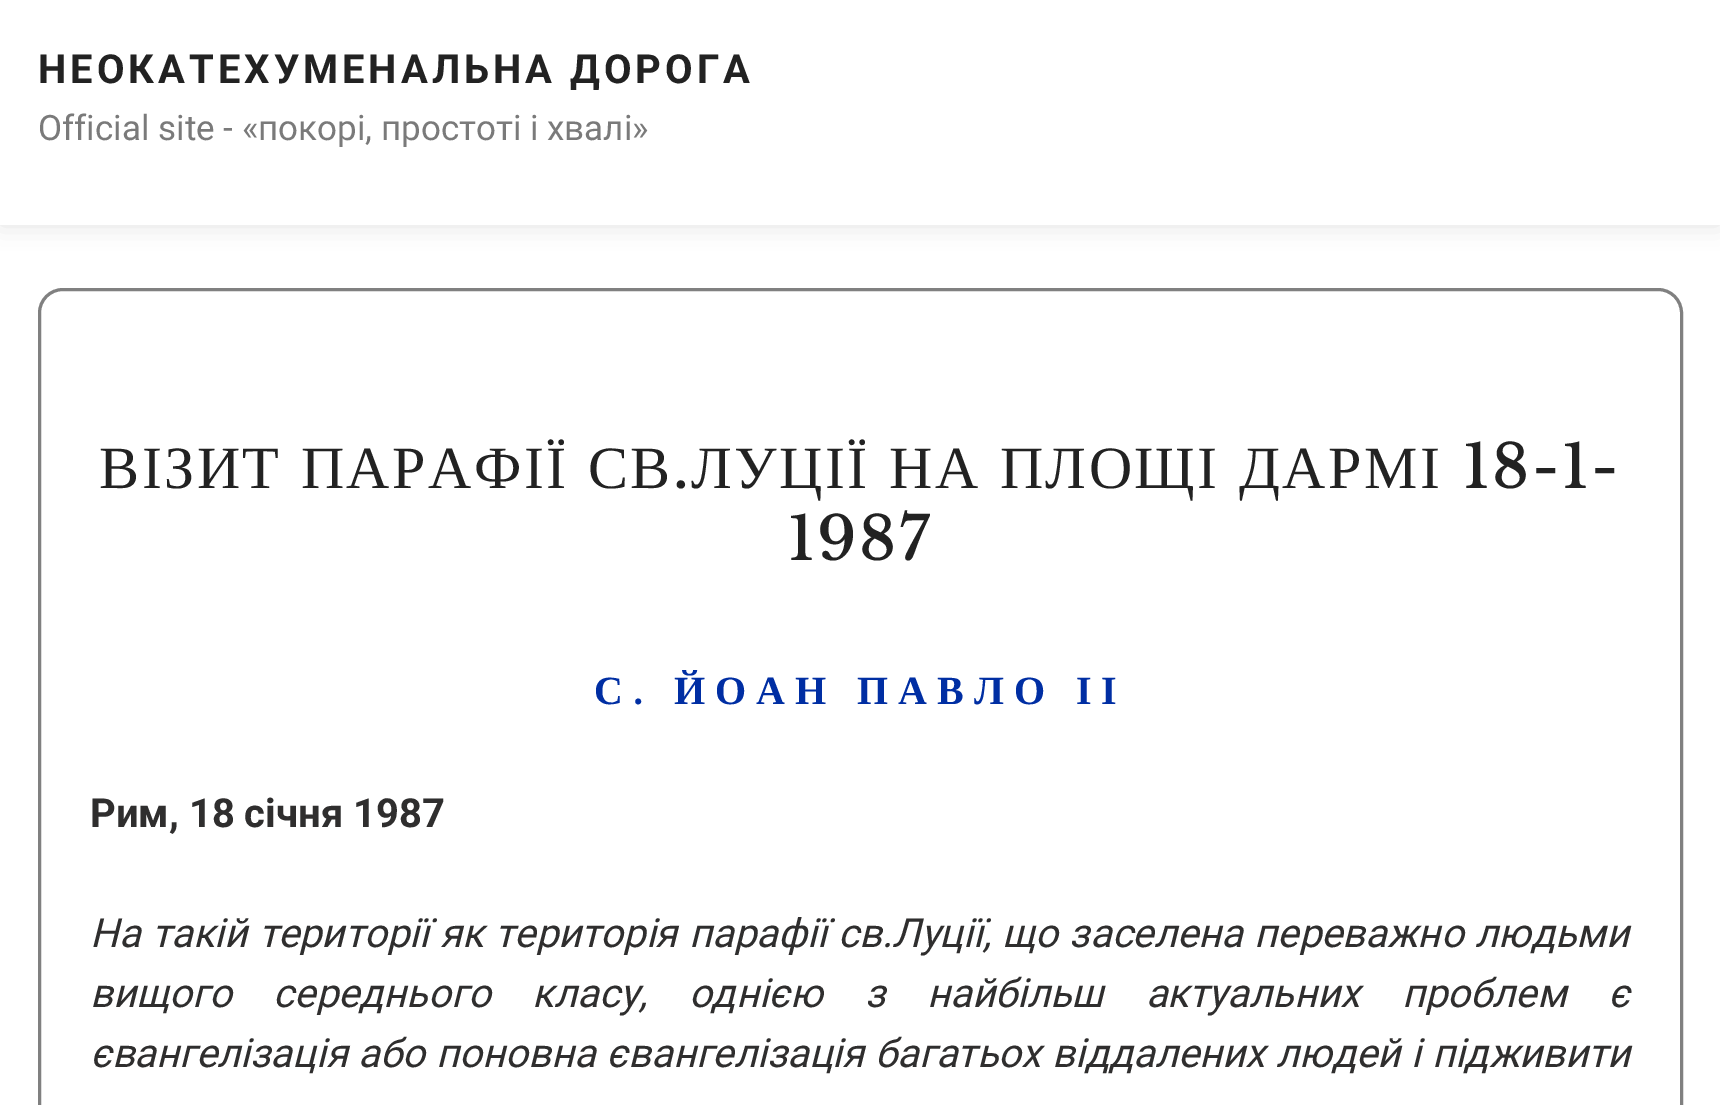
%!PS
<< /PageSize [1720 1105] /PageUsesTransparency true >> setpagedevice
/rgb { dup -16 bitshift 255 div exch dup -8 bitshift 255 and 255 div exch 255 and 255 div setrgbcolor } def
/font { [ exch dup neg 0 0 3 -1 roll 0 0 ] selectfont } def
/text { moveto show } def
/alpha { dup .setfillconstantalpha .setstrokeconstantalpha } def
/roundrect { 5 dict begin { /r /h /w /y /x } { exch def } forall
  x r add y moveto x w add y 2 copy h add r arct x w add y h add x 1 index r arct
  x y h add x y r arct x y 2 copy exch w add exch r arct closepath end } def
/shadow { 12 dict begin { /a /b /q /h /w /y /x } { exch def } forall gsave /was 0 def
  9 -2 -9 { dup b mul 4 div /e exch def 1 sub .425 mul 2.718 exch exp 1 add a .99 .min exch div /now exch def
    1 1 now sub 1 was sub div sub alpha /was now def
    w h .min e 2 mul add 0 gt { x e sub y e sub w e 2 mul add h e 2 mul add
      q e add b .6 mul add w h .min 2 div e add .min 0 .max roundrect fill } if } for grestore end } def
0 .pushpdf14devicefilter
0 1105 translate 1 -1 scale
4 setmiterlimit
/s1 { /Roboto-Regular 35 font 16#7A7A7A rgb } def
/s2 { /Roboto-Bold 40 font 16#2F2E2E rgb } def
16#FFFFFF rgb
0 0 1720 1105 rectfill
gsave
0 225 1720 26 rectclip
16#E0E0E0 rgb
0 0 1720 225 0 12.5 1 shadow
grestore
/Roboto-Bold 40 font
16#222222 rgb
38 83 moveto 4 0 (НЕОКАТЕХУМЕНАЛЬНА ДОРОГА) ashow
s1
(Official site - «покорі, простоті і хвалі») 38 140 text
16#808080 rgb
3 setlinewidth
39.5 289.5 1642 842 23.5 roundrect stroke
/LiberationSerif-Regular 60 font
16#222222 rgb
99 488 moveto 1.5 0 32 2.5 0 (ВІЗИТ ПАРАФІЇ СВ) awidthshow
/LibreBaskerville-Medium 60 font
673 488 moveto 2.5 0 (.) ashow
/LiberationSerif-Regular 60 font
691 488 moveto 1.5 0 32 2.5 0 (ЛУЦІЇ НА ПЛОЩІ ДАРМІ) awidthshow
/LibreBaskerville-Medium 60 font
1463 488 moveto 2.5 0 (18-1-) ashow
788 560 moveto 2.5 0 (1987) ashow
/LiberationSerif-Bold 40 font
16#002EA3 rgb
594 704 moveto 10 0 (С) ashow
/LibreBaskerville-Bold 40 font
633 704 moveto 10 0 (.) ashow
/LiberationSerif-Bold 40 font
674 704 moveto 1 0 32 10 0 (ЙОАН ПАВЛО ІІ) awidthshow
s2
(Рим, 18 січня 1987) 90 827 text
/Roboto-Italic 40 font
90 947 moveto 1.5 0 32 (На такій території як територія парафії св.Луції, що заселена переважно людьми) widthshow
90 1007 moveto 32 0 32 (вищого середнього класу, однією з найбільш актуальних проблем є) widthshow
90 1067 moveto 1 0 32 (євангелізація або поновна євангелізація багатьох віддалених людей і підживити) widthshow
.poppdf14devicefilter showpage
